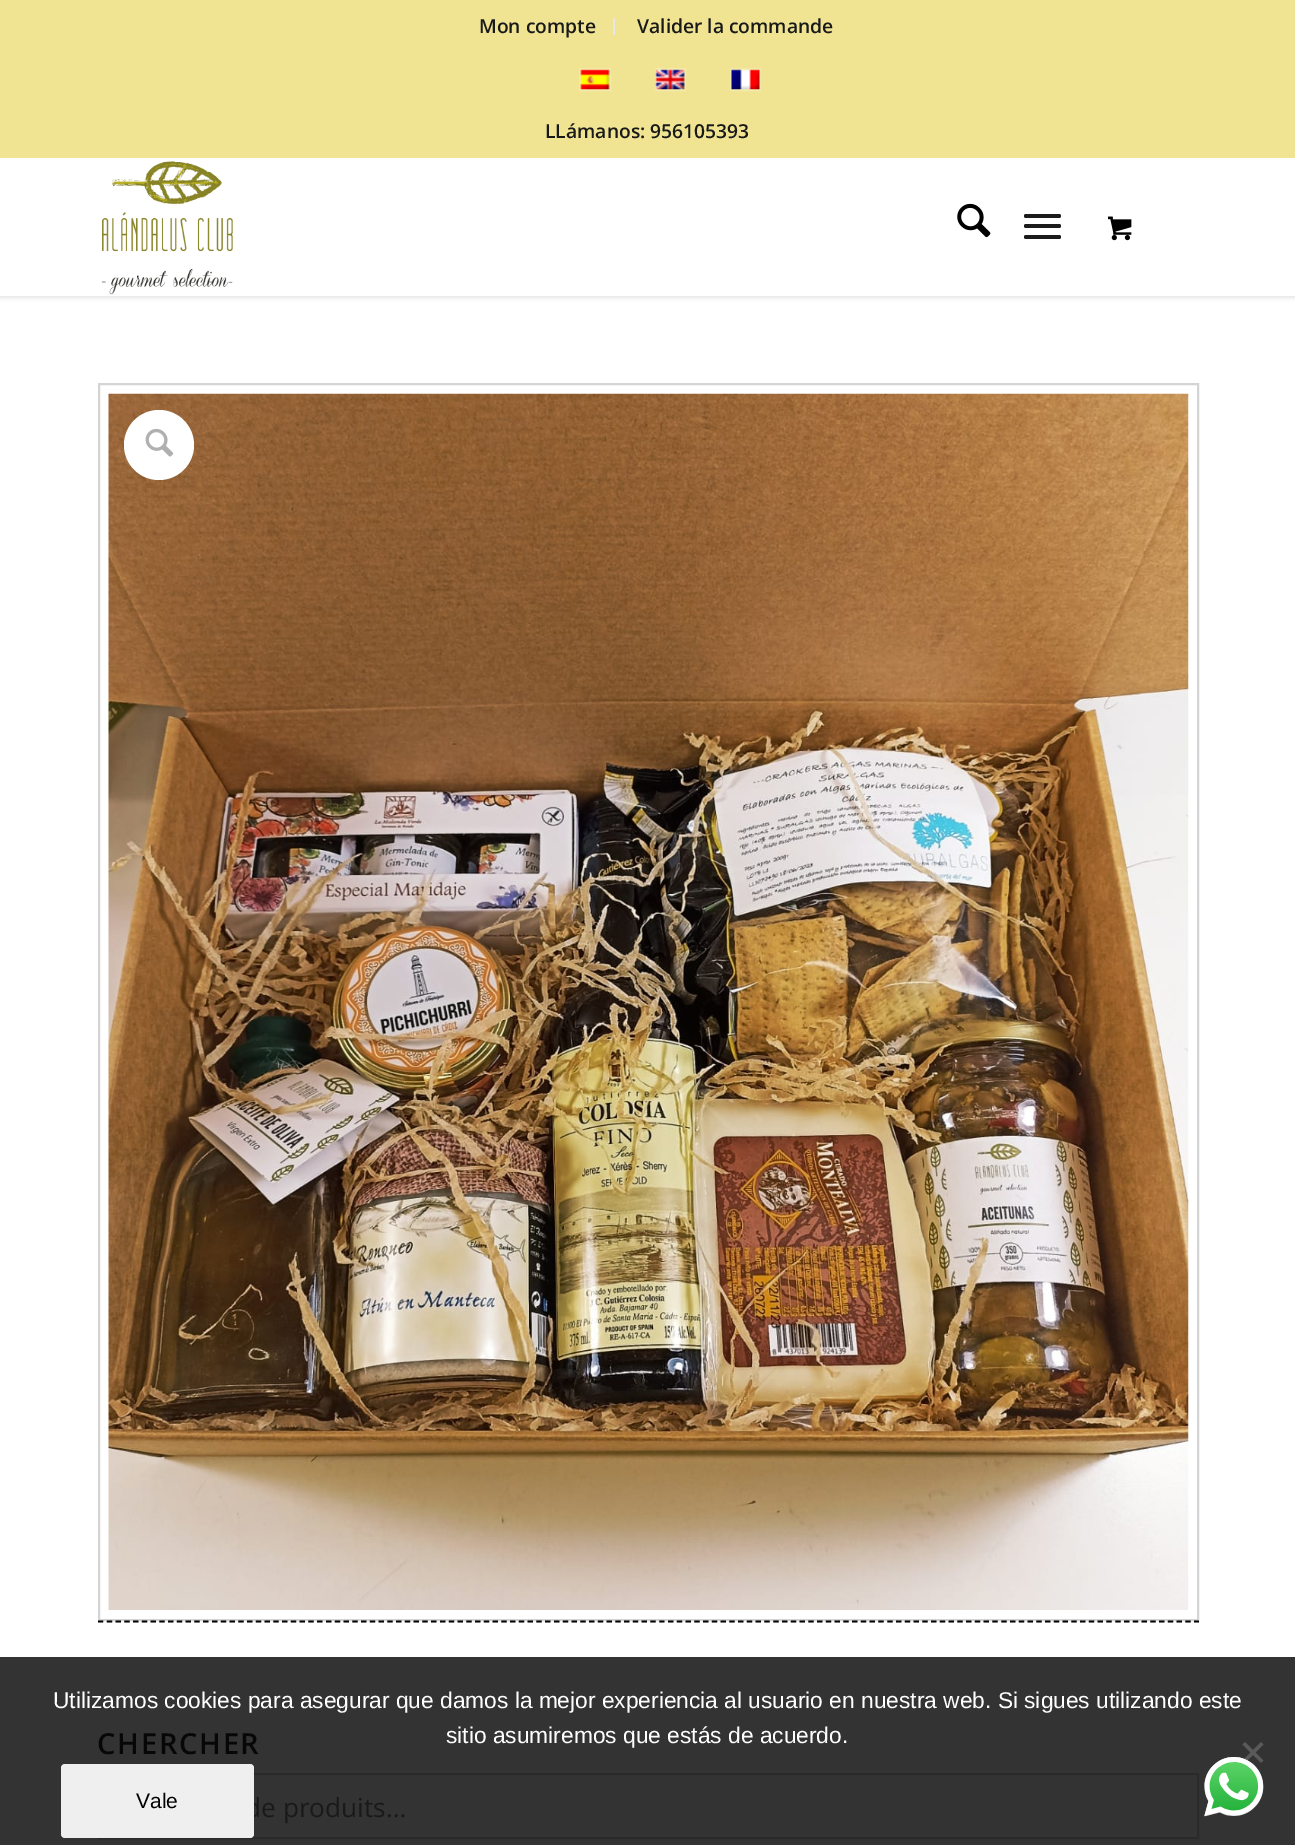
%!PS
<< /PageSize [1295 1845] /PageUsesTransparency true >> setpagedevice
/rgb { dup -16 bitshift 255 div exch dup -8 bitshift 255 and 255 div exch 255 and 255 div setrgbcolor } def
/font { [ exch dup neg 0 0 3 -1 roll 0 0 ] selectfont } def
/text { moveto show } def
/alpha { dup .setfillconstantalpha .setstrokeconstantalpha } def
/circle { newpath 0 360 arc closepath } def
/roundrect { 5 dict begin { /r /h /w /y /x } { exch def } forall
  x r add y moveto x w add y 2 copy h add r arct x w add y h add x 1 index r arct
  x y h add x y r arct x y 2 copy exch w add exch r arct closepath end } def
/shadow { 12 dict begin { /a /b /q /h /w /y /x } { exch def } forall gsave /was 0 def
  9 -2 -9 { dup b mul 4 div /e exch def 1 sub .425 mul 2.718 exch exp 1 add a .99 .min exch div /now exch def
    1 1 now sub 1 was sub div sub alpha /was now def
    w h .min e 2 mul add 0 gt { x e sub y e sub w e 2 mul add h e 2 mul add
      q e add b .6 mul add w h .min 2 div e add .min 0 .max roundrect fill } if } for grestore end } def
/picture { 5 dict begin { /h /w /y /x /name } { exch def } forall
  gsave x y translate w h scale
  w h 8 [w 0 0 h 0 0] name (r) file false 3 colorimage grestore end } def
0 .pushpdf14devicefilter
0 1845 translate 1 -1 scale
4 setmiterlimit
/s1 { /OpenSans-SemiBold 19.25 font 16#191919 rgb } def
/s2 { /OpenSans-Regular 26.25 font 16#191919 rgb } def
/s3 { /LiberationSans-Regular 22.75 font 16#FFFFFF rgb } def
/s4 { /LiberationSans-Regular 21 font 16#000000 rgb } def
16#FFFFFF rgb
0 0 1295 1845 rectfill
16#333333 rgb
0 1657 1295 188 rectfill
16#000000 rgb
-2 -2 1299 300 0 2 0.1 shadow
16#F0E493 rgb
0 0 1295 158 rectfill
16#E8E5E6 rgb
613 18 2 17 rectfill
s1
(Mon compte) 479 33 text
(Valider la commande) 637 33 text
16#F3E9A9 rgb
2 setlinewidth
580 69 30 21 rectstroke
(pic1.raw) 580 69 30 21 picture
656 69 29 21 rectstroke
(pic2.raw) 655 69 30 21 picture
731 69 29 21 rectstroke
(pic3.raw) 731 69 29 21 picture
s1
(LLámanos: 956105393) 545 138 text
16#FFFFFF rgb
0 158 1295 138 rectfill
(pic4.raw) 101 161 132 134 picture
(pic5.raw) 957 203 34 35 picture
16#1C1B1C rgb
1024 224 37 4 2 roundrect fill
1024 214 37 4 2 roundrect fill
1024 235 37 4 2 roundrect fill
(pic6.raw) 1108 216 24 25 picture
16#D4D4D4 rgb
99 384 1099 1236 rectstroke
(pic7.raw) 108 393 1081 1217 picture
16#FFFFFF rgb
159 445 35 circle fill
(pic8.raw) 145 428 29 29 picture
16#000000 rgb
1.8 setlinewidth
[5.25 3.52] 0 setdash
98 1621.5 moveto 1199 1621.5 lineto stroke
/OpenSans-SemiBold 29 font
16#070707 rgb
97 1754 moveto 1.75 0 (CHERCHER) ashow
16#2A2A2A rgb
2 setlinewidth
[] 0 setdash
99 1774 1099 64 rectstroke
s2
(de produits…) 245 1817 text
s3
(Utilizamos cookies para asegurar que damos la mejor experiencia al usuario en nuestra web. Si sigues utilizando este) 53 1708 text
(sitio asumiremos que estás de acuerdo.) 446 1743 text
16#5A5A5A rgb
1261 1742 moveto 1263.5 1744.5 lineto 1245 1763 lineto 1242.5 1760.5 lineto closepath fill
1242.5 1744.5 moveto 1245 1742 lineto 1263.5 1760.5 lineto 1261 1763 lineto closepath fill
16#EFEFEF rgb
61 1764 193 74 4 roundrect fill
s4
(Vale) 136 1808 text
(pic9.raw) 1204 1757 60 60 picture
.poppdf14devicefilter showpage
